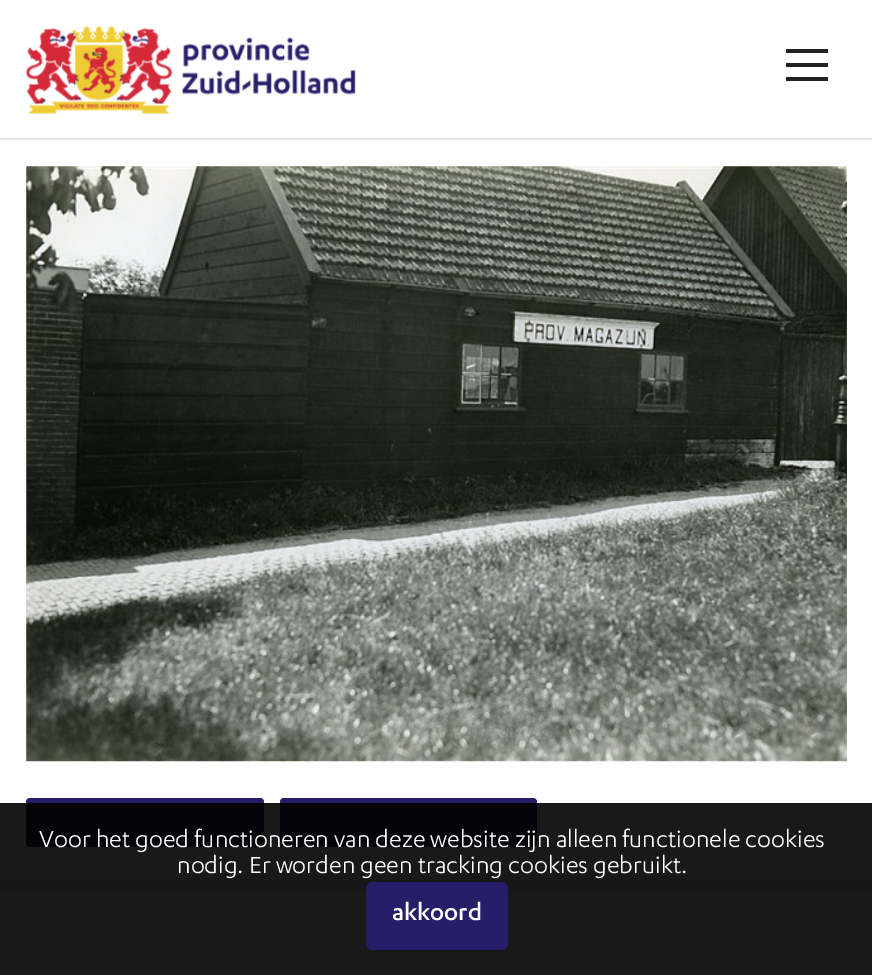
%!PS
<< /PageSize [872 975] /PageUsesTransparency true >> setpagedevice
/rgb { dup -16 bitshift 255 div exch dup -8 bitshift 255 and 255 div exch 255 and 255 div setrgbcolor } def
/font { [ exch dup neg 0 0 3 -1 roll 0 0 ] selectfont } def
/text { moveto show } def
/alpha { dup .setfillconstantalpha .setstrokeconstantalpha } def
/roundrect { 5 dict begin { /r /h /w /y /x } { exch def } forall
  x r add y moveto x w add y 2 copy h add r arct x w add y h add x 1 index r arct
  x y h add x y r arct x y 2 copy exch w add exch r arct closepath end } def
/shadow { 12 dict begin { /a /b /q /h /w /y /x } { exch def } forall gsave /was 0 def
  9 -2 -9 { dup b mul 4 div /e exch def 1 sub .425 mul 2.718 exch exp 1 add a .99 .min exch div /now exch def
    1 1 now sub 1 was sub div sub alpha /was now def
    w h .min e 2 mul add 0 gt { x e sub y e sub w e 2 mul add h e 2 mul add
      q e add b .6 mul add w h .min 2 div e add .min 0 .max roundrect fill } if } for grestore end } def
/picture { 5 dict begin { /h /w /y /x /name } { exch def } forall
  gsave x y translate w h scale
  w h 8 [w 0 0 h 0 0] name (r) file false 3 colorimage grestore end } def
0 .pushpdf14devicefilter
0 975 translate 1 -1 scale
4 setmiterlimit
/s1 { /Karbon-Regular 26.75 font 16#FFFFFF rgb } def
/s2 { /Karbon-Medium 26.75 font 16#FFFFFF rgb } def
16#FFFFFF rgb
0 0 872 975 rectfill
16#E6E6E6 rgb
0 138 872 2 rectfill
(pic1.raw) 26 26 330 88 picture
16#222222 rgb
786 49 42 4 rectfill
786 63 42 4 rectfill
786 77 42 4 rectfill
16#000000 rgb
0 898 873 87 0 13 0.4 shadow
16#FFFFFF rgb
0 891 872 84 rectfill
16#E6E6E6 rgb
0 889 872 2 rectfill
(pic2.raw) 26 166 821 596 picture
16#271E6A rgb
26 798 238 49 4 roundrect fill
280 798 257 49 4 roundrect fill
0.9 alpha
16#000000 rgb
0 803 872 172 rectfill
1 alpha
s1
(Voor het goed functioneren van deze website zijn alleen functionele cookies) 39 847 text
(nodig. Er worden geen tracking cookies gebruikt.) 177 873 text
16#271E6A rgb
366 882 142 68 7 roundrect fill
s2
(akkoord) 392 920 text
.poppdf14devicefilter showpage
